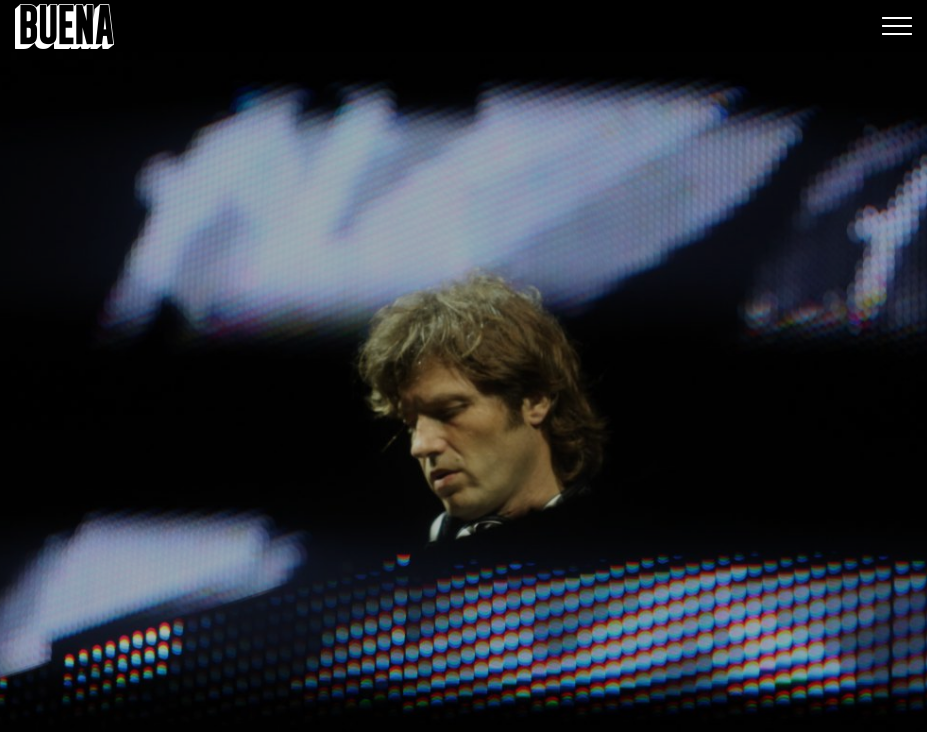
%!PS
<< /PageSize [927 732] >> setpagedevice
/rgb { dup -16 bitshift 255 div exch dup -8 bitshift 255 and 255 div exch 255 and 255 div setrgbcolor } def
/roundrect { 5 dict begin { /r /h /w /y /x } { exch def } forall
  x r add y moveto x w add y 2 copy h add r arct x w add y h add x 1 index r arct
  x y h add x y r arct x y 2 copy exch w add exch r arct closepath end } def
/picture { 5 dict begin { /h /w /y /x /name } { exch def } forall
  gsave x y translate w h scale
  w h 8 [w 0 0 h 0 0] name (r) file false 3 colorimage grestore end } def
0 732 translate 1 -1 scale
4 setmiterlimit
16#FFFFFF rgb
0 0 927 732 rectfill
16#000000 rgb
0 0 927 52 rectfill
(pic1.raw) 15 4 99 45 picture
16#FFFFFF rgb
882 17 30 2 1 roundrect fill
882 25 30 2 1 roundrect fill
882 33 30 2 1 roundrect fill
(pic2.raw) 0 52 927 680 picture
showpage
